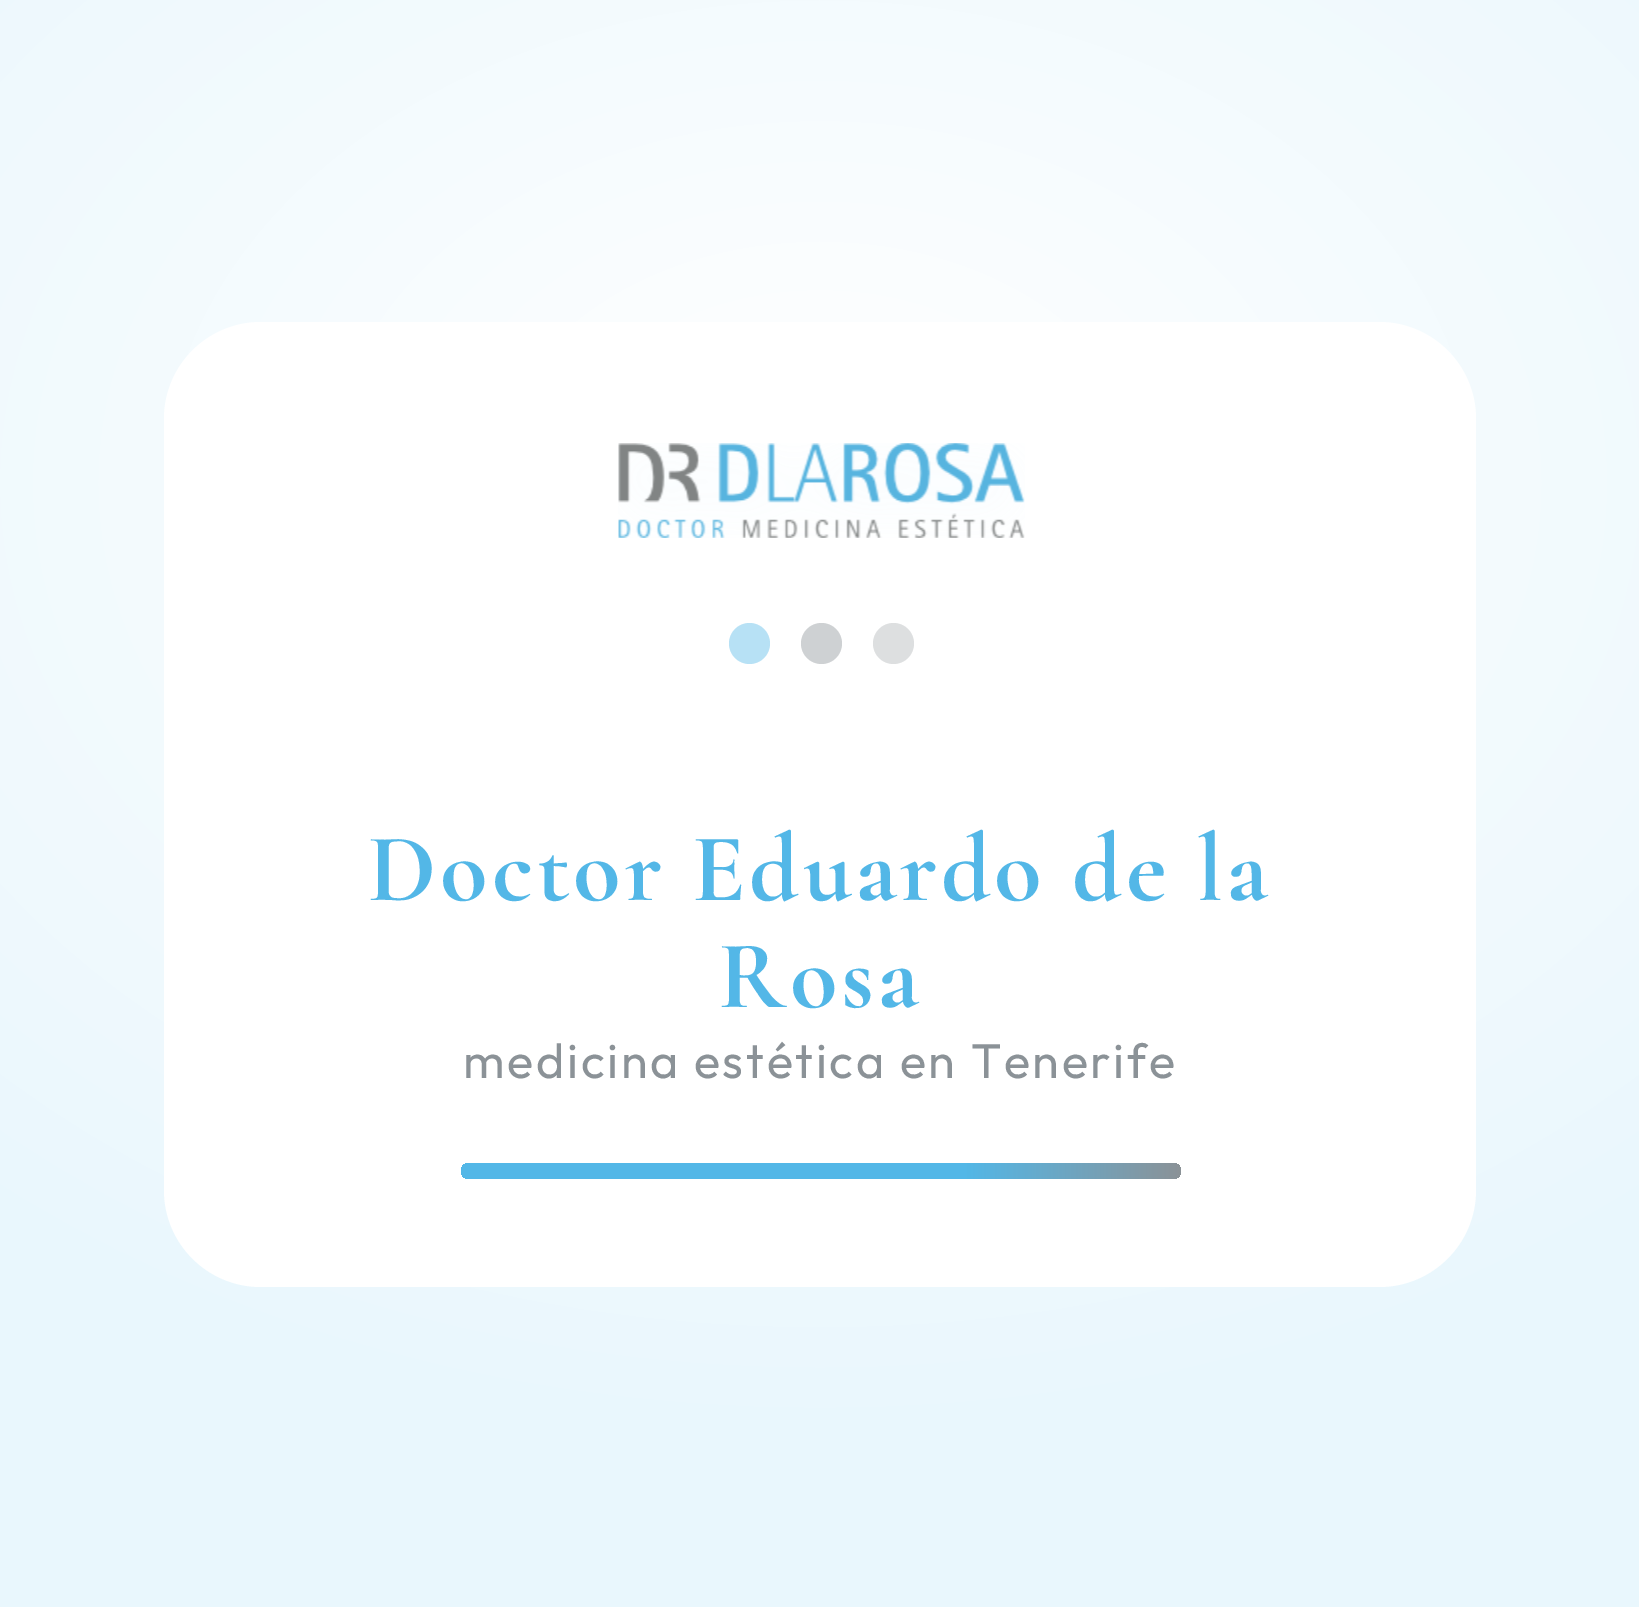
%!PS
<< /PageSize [1639 1607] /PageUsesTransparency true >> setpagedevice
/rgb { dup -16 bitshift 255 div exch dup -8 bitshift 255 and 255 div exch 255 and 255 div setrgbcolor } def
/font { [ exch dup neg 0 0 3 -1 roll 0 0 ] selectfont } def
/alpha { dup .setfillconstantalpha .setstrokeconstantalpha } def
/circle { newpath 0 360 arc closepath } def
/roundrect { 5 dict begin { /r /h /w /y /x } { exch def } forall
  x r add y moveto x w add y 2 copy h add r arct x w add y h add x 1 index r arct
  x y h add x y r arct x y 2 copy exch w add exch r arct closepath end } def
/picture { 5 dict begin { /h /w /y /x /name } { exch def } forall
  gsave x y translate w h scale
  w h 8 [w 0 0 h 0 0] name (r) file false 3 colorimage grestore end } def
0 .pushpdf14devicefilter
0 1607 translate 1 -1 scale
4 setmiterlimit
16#FFFFFF rgb
0 0 1639 1607 rectfill
gsave 0 0 moveto 1639 0 lineto 1639 1607 lineto 0 1607 lineto closepath clip newpath 820 483 translate 1312 965 scale
<< /ShadingType 3 /ColorSpace /DeviceRGB /Coords [0 0 0 0 0 1] /Extend [true true] /Function << /FunctionType 2 /Domain [0 1] /C0 [1 1 1] /C1 [0.914 0.969 0.992] /N 1 >> >> shfill grestore
0.98 alpha
164 322 1312 965 97 roundrect fill
1 alpha
(pic1.raw) 618 443 407 95 picture
16#B7E1F5 rgb
749.5 643.5 20.5 circle fill
16#CED1D3 rgb
821.5 643.5 20.5 circle fill
16#DDDFE0 rgb
893.5 643.5 20.5 circle fill
/CormorantGaramond-Light 97.25 font
16#53B7E7 rgb
368 900 moveto 3.8 0 (Doctor Eduardo de la) ashow
718 1007 moveto 3.8 0 (Rosa) ashow
/Outfit-Regular 48.6 font
16#8B9297 rgb
463 1078 moveto 2.7 0 (medicina estética en Tenerife) ashow
gsave 461 1163 720 16 8 roundrect clip newpath
<< /ShadingType 2 /ColorSpace /DeviceRGB /Coords [461 1171 1181 1171] /Extend [true true] /Function << /FunctionType 3 /Domain [0 1] /Functions [<< /FunctionType 2 /Domain [0 1] /C0 [0.325 0.718 0.906] /C1 [0.325 0.718 0.906] /N 1 >> << /FunctionType 2 /Domain [0 1] /C0 [0.325 0.718 0.906] /C1 [0.545 0.573 0.592] /N 1 >>] /Bounds [0.7] /Encode [0 1 0 1] >> >> shfill grestore
.poppdf14devicefilter showpage
